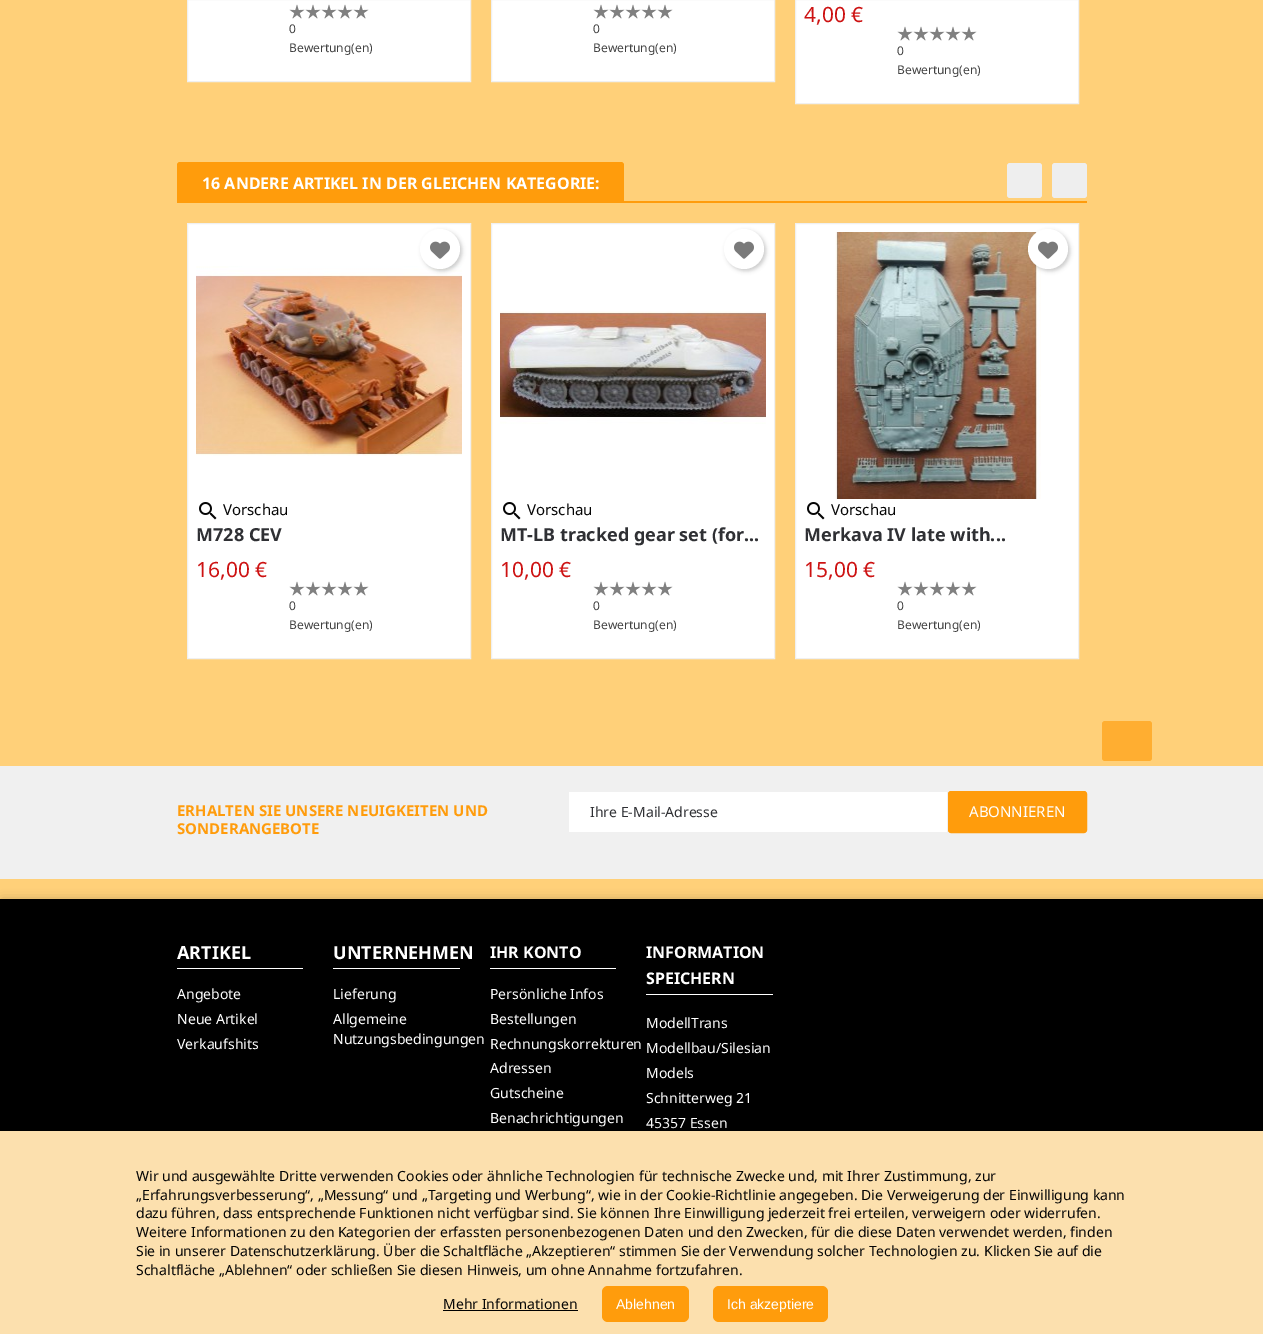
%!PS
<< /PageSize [1263 1334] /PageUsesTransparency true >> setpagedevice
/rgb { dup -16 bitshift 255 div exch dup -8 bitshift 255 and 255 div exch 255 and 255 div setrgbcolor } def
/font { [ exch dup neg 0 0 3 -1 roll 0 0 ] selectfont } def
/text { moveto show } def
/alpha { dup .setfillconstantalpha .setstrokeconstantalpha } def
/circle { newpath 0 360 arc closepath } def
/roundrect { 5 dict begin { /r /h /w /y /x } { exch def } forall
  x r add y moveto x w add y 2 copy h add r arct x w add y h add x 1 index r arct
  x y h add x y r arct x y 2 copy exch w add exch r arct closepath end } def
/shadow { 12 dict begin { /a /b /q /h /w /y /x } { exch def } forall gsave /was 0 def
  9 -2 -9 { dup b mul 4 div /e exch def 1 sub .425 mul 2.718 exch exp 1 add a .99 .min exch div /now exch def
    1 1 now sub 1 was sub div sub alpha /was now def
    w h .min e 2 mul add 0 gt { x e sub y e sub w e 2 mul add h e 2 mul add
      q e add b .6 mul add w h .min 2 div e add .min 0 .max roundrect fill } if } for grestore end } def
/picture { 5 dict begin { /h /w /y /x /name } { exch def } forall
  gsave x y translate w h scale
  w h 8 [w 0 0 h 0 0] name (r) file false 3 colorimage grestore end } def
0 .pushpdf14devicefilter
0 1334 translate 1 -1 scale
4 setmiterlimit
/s1 { /NotoSans-Regular 12 font 16#414141 rgb } def
/s2 { /NotoSans-Regular 21 font 16#CD1212 rgb } def
/s3 { /NotoSans-Bold 16 font 16#FFFFFF rgb } def
/s4 { /NotoSans-Regular 15 font 16#050505 rgb } def
/s5 { /NotoSans-Bold 18 font 16#2F3034 rgb } def
/s6 { /NotoSans-Bold 15 font 16#FF9C0C rgb } def
/s7 { /NotoSans-Regular 14 font 16#2F3034 rgb } def
/s8 { /NotoSans-Regular 15 font 16#FFFFFF rgb } def
/s9 { /NotoSans-Bold 18 font 16#FFFFFF rgb } def
/s10 { /NotoSans-Regular 14 font 16#FFFFFF rgb } def
/s11 { /NotoSans-Regular 14 font 16#050505 rgb } def
/s12 { /LiberationSans-Regular 14 font 16#FFFFFF rgb } def
16#FFD079 rgb
0 0 1263 1334 rectfill
16#FFFFFF rgb
187.5 -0.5 moveto 470.5 -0.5 lineto 470.5 81.5 lineto 187.5 81.5 lineto closepath gsave fill grestore
16#F0F0F0 rgb
stroke
(pic1.raw) 289 4 16 15 picture
(pic1.raw) 305 4 16 15 picture
(pic1.raw) 321 4 16 15 picture
(pic1.raw) 337 4 16 15 picture
(pic1.raw) 353 4 16 15 picture
s1
(0) 289 33 text
(Bewertung\(en\)) 289 52 text
16#FFFFFF rgb
491.5 -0.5 moveto 774.5 -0.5 lineto 774.5 81.5 lineto 491.5 81.5 lineto closepath gsave fill grestore
16#F0F0F0 rgb
stroke
(pic1.raw) 593 4 16 15 picture
(pic1.raw) 609 4 16 15 picture
(pic1.raw) 625 4 16 15 picture
(pic1.raw) 641 4 16 15 picture
(pic1.raw) 657 4 16 15 picture
s1
(0) 593 33 text
(Bewertung\(en\)) 593 52 text
16#FFFFFF rgb
795.5 -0.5 moveto 1078.5 -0.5 lineto 1078.5 103.5 lineto 795.5 103.5 lineto closepath gsave fill grestore
16#F0F0F0 rgb
stroke
s2
(4,00 €) 804 22 text
(pic1.raw) 897 26 16 15 picture
(pic1.raw) 913 26 16 15 picture
(pic1.raw) 929 26 16 15 picture
(pic1.raw) 945 26 16 15 picture
(pic1.raw) 961 26 16 15 picture
s1
(0) 897 55 text
(Bewertung\(en\)) 897 74 text
16#FF9C0C rgb
177 201 910 2 rectfill
180 162 moveto 621 162 lineto 622.5 162 624 163.5 624 165 curveto 624 201 lineto 177 201 lineto 177 165 lineto 177 163.5 178.5 162 180 162 curveto closepath fill
s3
(16 ANDERE ARTIKEL IN DER GLEICHEN KATEGORIE:) 202 189 text
16#EEEEEE rgb
1007 163 35 35 3 roundrect fill
1052 163 35 35 3 roundrect fill
16#FFFFFF rgb
187.5 223.5 moveto 470.5 223.5 lineto 470.5 658.5 lineto 187.5 658.5 lineto closepath gsave fill grestore
16#F0F0F0 rgb
stroke
(pic3.raw) 196 266 266 190 picture
16#000000 rgb
422 231 40 40 20 2 0.2 shadow
16#FFFFFF rgb
440 249 20 circle fill
(pic2.raw) 430 241 20 18 picture
(pic4.raw) 199 502 18 18 picture
s4
(Vorschau) 223 515 text
s5
(M728 CEV) 196 541 text
s2
(16,00 €) 196 577 text
(pic1.raw) 289 581 16 15 picture
(pic1.raw) 305 581 16 15 picture
(pic1.raw) 321 581 16 15 picture
(pic1.raw) 337 581 16 15 picture
(pic1.raw) 353 581 16 15 picture
s1
(0) 289 610 text
(Bewertung\(en\)) 289 629 text
16#FFFFFF rgb
491.5 223.5 moveto 774.5 223.5 lineto 774.5 658.5 lineto 491.5 658.5 lineto closepath gsave fill grestore
16#F0F0F0 rgb
stroke
16#000000 rgb
726 231 40 40 20 2 0.2 shadow
16#FFFFFF rgb
744 249 20 circle fill
(pic2.raw) 734 241 20 18 picture
(pic5.raw) 500 311 266 113 picture
(pic4.raw) 503 502 18 18 picture
s4
(Vorschau) 527 515 text
s5
(MT-LB tracked gear set \(for...) 500 541 text
s2
(10,00 €) 500 577 text
(pic1.raw) 593 581 16 15 picture
(pic1.raw) 609 581 16 15 picture
(pic1.raw) 625 581 16 15 picture
(pic1.raw) 641 581 16 15 picture
(pic1.raw) 657 581 16 15 picture
s1
(0) 593 610 text
(Bewertung\(en\)) 593 629 text
16#FFFFFF rgb
795.5 223.5 moveto 1078.5 223.5 lineto 1078.5 658.5 lineto 795.5 658.5 lineto closepath gsave fill grestore
16#F0F0F0 rgb
stroke
(pic6.raw) 835 232 206 267 picture
16#000000 rgb
1030 231 40 40 20 2 0.2 shadow
16#FFFFFF rgb
1048 249 20 circle fill
(pic2.raw) 1038 241 20 18 picture
(pic4.raw) 807 502 18 18 picture
s4
(Vorschau) 831 515 text
s5
(Merkava IV late with...) 804 541 text
s2
(15,00 €) 804 577 text
(pic1.raw) 897 581 16 15 picture
(pic1.raw) 913 581 16 15 picture
(pic1.raw) 929 581 16 15 picture
(pic1.raw) 945 581 16 15 picture
(pic1.raw) 961 581 16 15 picture
s1
(0) 897 610 text
(Bewertung\(en\)) 897 629 text
16#F0F0F0 rgb
0 766 1263 113 rectfill
s6
(ERHALTEN SIE UNSERE NEUIGKEITEN UND) 177 816 text
(SONDERANGEBOTE) 177 834 text
16#FFFFFF rgb
569 792 378 40 rectfill
s7
(Ihre E-Mail-Adresse) 590 817 text
16#FF9C0C rgb
948.5 791.5 138 41 2.5 roundrect gsave fill grestore
stroke
s8
(ABONNIEREN) 969 817 text
16#000000 rgb
2 901 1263 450 0 5.5 0.3 shadow
0 899 1263 232 rectfill
16#FFAE31 rgb
1102 721 50 40 3 roundrect fill
16#FFFFFF rgb
177 968 126 1 rectfill
s9
(ARTIKEL) 177 959 text
s10
(Angebote) 177 999 text
(Neue Artikel) 177 1024 text
(Verkaufshits) 177 1049 text
333 968 127 1 rectfill
s9
(UNTERNEHMEN) 333 959 text
s10
(Lieferung) 333 999 text
(Allgemeine) 333 1024 text
(Nutzungsbedingungen) 333 1044 text
490 968 126 1 rectfill
s3
(IHR KONTO) 490 958 text
s10
(Persönliche Infos) 490 999 text
(Bestellungen) 490 1024 text
(Rechnungskorrekturen) 490 1049 text
(Adressen) 490 1073 text
(Gutscheine) 490 1098 text
(Benachrichtigungen) 490 1123 text
646 994 127 1 rectfill
s3
(INFORMATION) 646 958 text
(SPEICHERN) 646 984 text
s10
(ModellTrans) 646 1028 text
(Modellbau/Silesian) 646 1053 text
(Models) 646 1078 text
(Schnitterweg 21) 646 1103 text
(45357 Essen) 646 1128 text
16#000000 rgb
0 1131 1263 203 0 3 1 shadow
16#FCE0AE rgb
0 1131 1263 203 rectfill
s11
(Wir und ausgewählte Dritte verwenden Cookies oder ähnliche Technologien für technische Zwecke und, mit Ihrer Zustimmung, zur) 136 1181 text
(„Erfahrungsverbesserung“, „Messung“ und „Targeting und Werbung“, wie in der Cookie-Richtlinie angegeben. Die Verweigerung der Einwilligung kann) 136 1200 text
(dazu führen, dass entsprechende Funktionen nicht verfügbar sind. Sie können Ihre Einwilligung jederzeit frei erteilen, verweigern oder widerrufen.) 136 1218 text
(Weitere Informationen zu den Kategorien der erfassten personenbezogenen Daten und den Zwecken, für die diese Daten verwendet werden, finden) 136 1237 text
(Sie in unserer Datenschutzerklärung. Über die Schaltfläche „Akzeptieren“ stimmen Sie der Verwendung solcher Technologien zu. Klicken Sie auf die) 136 1256 text
(Schaltfläche „Ablehnen“ oder schließen Sie diesen Hinweis, um ohne Annahme fortzufahren.) 136 1275 text
(Mehr Informationen) 443 1309 text
16#000000 rgb
443 1310 135 1 rectfill
16#FF9C0C rgb
602 1286 87 36 6 roundrect fill
s12
(Ablehnen) 616 1309 text
16#FF9C0C rgb
713 1286 115 36 6 roundrect fill
s12
(Ich akzeptiere) 727 1309 text
.poppdf14devicefilter showpage
